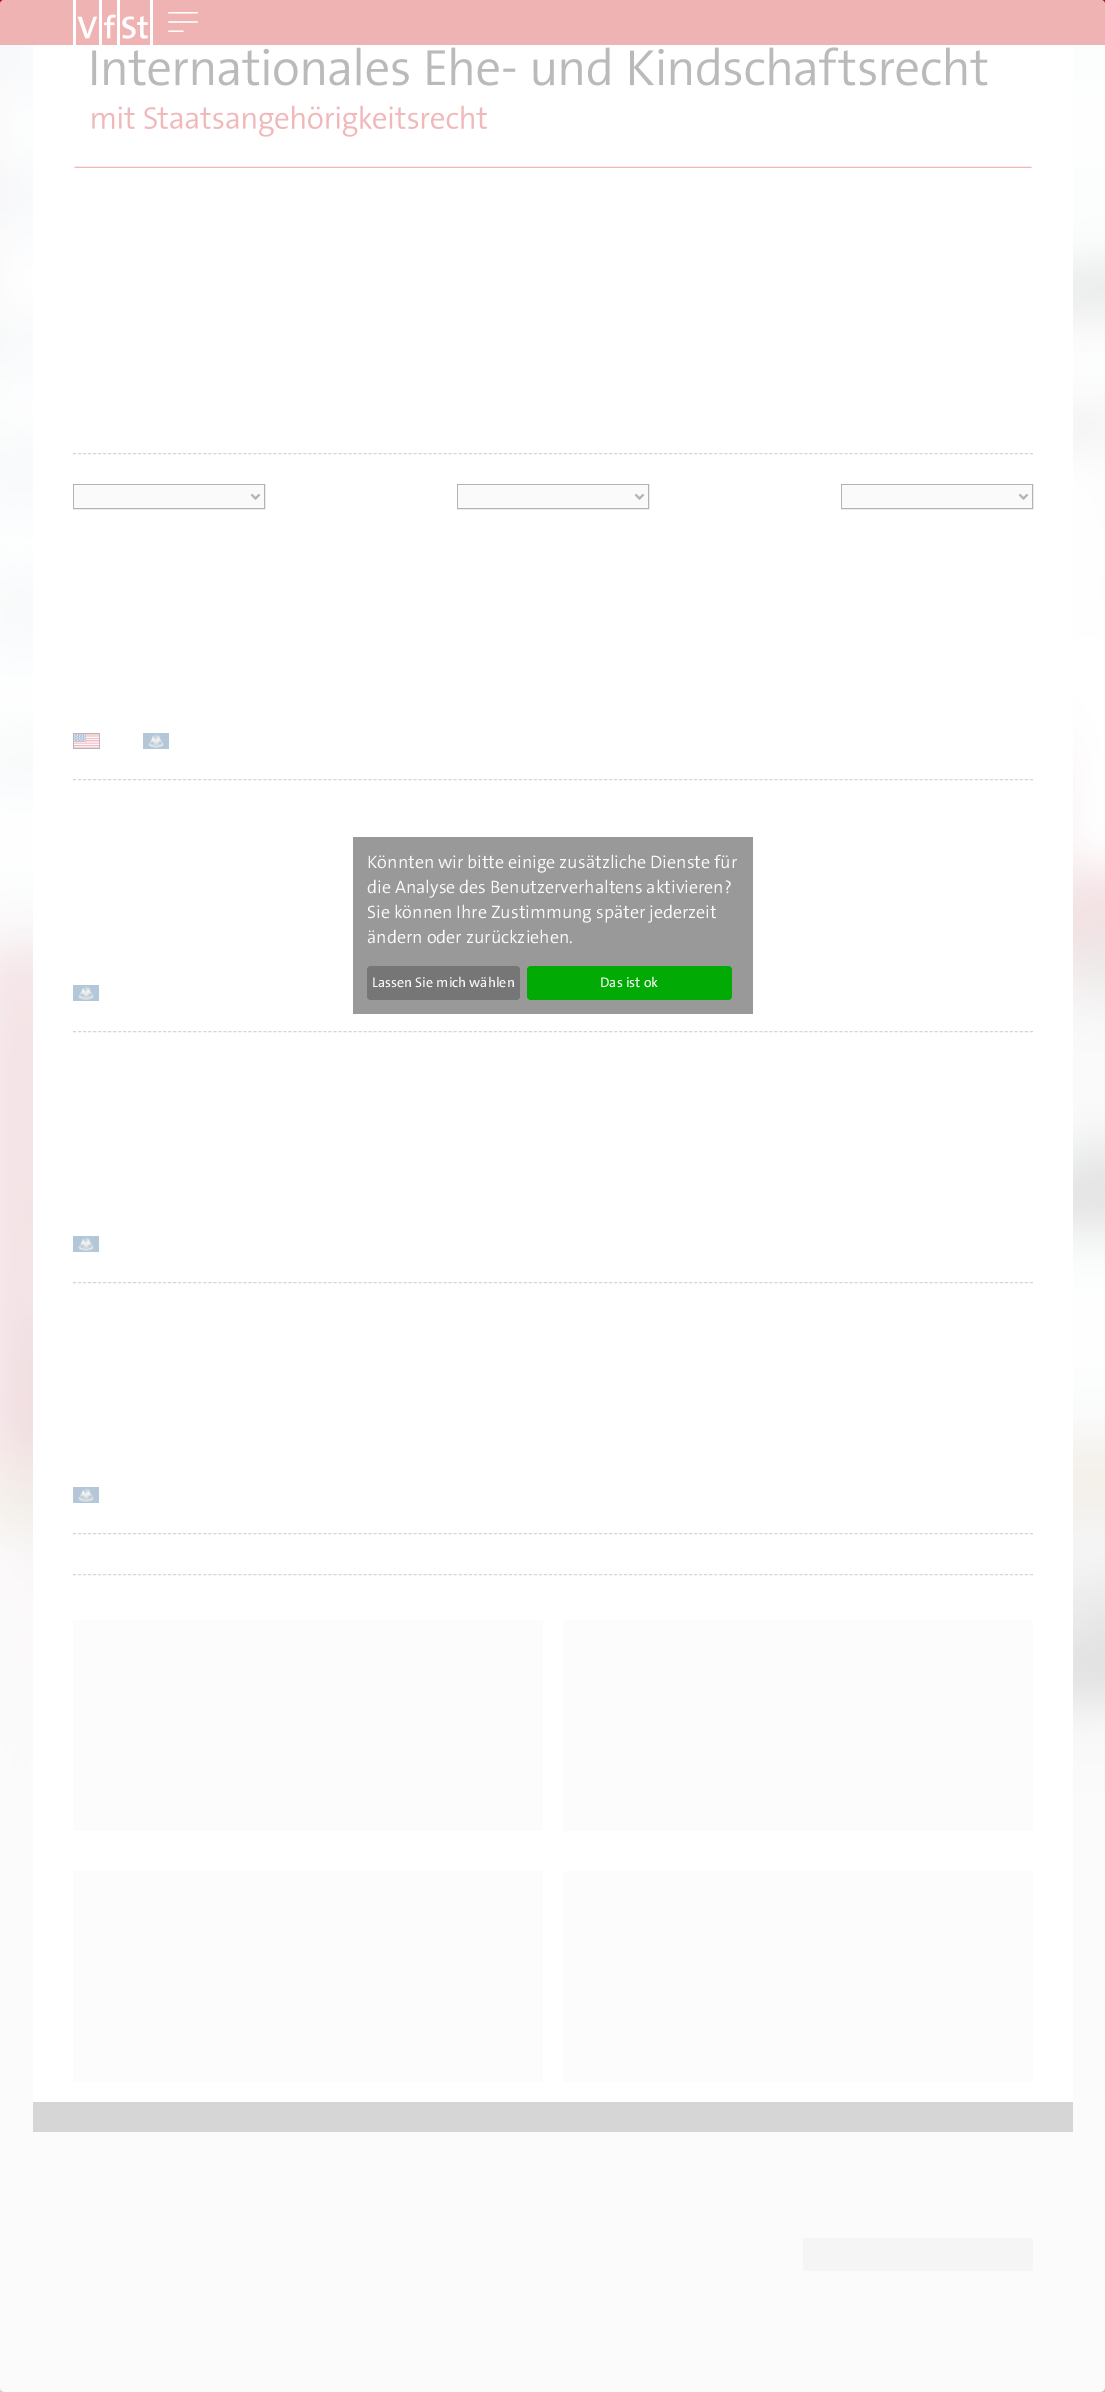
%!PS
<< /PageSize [1105 2392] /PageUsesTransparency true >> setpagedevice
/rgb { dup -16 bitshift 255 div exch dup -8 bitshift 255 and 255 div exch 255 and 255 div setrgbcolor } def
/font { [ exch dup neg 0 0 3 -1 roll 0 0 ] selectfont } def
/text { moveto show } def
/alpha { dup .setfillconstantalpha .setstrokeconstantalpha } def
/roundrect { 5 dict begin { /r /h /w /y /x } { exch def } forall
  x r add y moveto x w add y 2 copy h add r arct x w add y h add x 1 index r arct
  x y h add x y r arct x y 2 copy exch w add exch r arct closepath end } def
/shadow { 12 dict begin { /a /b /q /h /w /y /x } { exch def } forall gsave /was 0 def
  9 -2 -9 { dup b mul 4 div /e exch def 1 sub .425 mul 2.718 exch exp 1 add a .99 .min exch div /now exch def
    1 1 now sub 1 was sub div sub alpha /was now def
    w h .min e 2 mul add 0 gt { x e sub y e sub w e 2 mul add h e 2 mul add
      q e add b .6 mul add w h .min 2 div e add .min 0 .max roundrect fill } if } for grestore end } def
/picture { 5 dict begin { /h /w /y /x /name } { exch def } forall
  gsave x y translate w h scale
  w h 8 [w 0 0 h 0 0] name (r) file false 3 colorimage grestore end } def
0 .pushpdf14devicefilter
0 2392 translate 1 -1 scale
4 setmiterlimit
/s1 { /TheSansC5-Light 18 font 16#FAFAFA rgb } def
/s2 { /TheSansC5-Medium 14 font 16#FAFAFA rgb } def
16#FFFFFF rgb
0 0 1105 2392 rectfill
(pic1.raw) 0 45 1105 2347 picture
16#CC0000 rgb
0 0 1105 45 rectfill
(pic2.raw) 73 0 80 45 picture
(pic3.raw) 168 12 30 20 picture
16#FFFFFF rgb
33 45 1040 2057 rectfill
(pic4.raw) 74 47 958 121 picture
16#767676 rgb
[3 2.01] 0 setdash
73 453.5 moveto 1033 453.5 lineto stroke
16#000000 rgb
[] 0 setdash
73.5 484.5 191 24 rectstroke
16#EFEFEF rgb
74 485 190 23 rectfill
16#000000 rgb
2 setlinewidth
251.5 494.5 moveto 255.5 498.5 lineto 259.5 494.5 lineto stroke
1 setlinewidth
457.5 484.5 191 24 rectstroke
16#EFEFEF rgb
458 485 190 23 rectfill
16#000000 rgb
2 setlinewidth
635.5 494.5 moveto 639.5 498.5 lineto 643.5 494.5 lineto stroke
1 setlinewidth
841.5 484.5 191 24 rectstroke
16#EFEFEF rgb
842 485 190 23 rectfill
16#000000 rgb
2 setlinewidth
1019.5 494.5 moveto 1023.5 498.5 lineto 1027.5 494.5 lineto stroke
16#767676 rgb
1 setlinewidth
[3 2.01] 0 setdash
73 779.5 moveto 1033 779.5 lineto stroke
(pic5.raw) 73 733 27 16 picture
(pic6.raw) 143 733 26 16 picture
73 1031.5 moveto 1033 1031.5 lineto stroke
(pic7.raw) 73 985 26 16 picture
73 1282.5 moveto 1033 1282.5 lineto stroke
(pic7.raw) 73 1236 26 16 picture
73 1533.5 moveto 1033 1533.5 lineto stroke
(pic7.raw) 73 1487 26 16 picture
73 1574.5 moveto 1033 1574.5 lineto stroke
16#F4F4F4 rgb
73 1620 470 211 rectfill
563 1620 470 211 rectfill
73 1871 470 211 rectfill
563 1871 470 211 rectfill
16#767676 rgb
33 2102 1040 30 rectfill
16#DCDCDC rgb
803 2238 230 33 rectfill
gsave
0 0 moveto 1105 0 lineto 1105 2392 lineto 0 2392 lineto closepath 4 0 moveto 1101 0 lineto 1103 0 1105 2 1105 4 curveto 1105 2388 lineto 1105 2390 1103 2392 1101 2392 curveto 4 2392 lineto 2 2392 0 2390 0 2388 curveto 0 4 lineto 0 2 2 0 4 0 curveto closepath eoclip newpath
16#000000 rgb
5 5 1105 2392 4 5 0.19 shadow
0 4 1105 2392 4 3 0.2 shadow
grestore
0.7 alpha
16#FFFFFF rgb
0 0 1105 2392 4 roundrect fill
1 alpha
16#999999 rgb
353 837 400 177 rectfill
s1
(Könnten wir bitte einige zusätzliche Dienste für) 367 868 text
(die Analyse des Benutzerverhaltens aktivieren?) 367 893 text
(Sie können Ihre Zustimmung später jederzeit) 367 918 text
(ändern oder zurückziehen.) 367 943 text
16#767676 rgb
367 966 153 34 4 roundrect fill
s2
(Lassen Sie mich wählen) 372 987 text
16#02AA05 rgb
527 966 205 34 4 roundrect fill
s2
(Das ist ok) 600 987 text
.poppdf14devicefilter showpage
